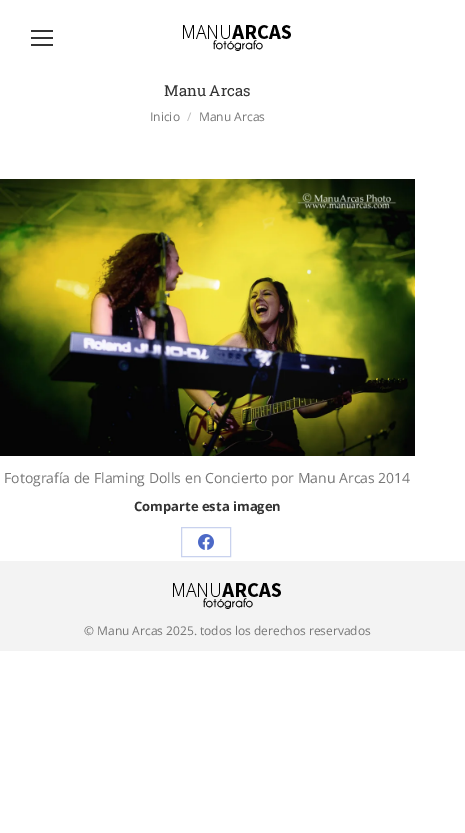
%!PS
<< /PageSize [465 833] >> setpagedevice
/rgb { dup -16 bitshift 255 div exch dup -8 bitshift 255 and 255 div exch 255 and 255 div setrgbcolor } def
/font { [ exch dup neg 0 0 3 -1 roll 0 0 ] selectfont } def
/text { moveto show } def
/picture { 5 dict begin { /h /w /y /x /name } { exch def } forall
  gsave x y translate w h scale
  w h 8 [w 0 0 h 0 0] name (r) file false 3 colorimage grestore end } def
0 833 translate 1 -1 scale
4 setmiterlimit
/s1 { /RobotoSlab-Regular 15 font 16#333333 rgb } def
/s2 { /OpenSans-Regular 12 font 16#777777 rgb } def
/s3 { /OpenSans-Regular 12 font 16#BBBBBB rgb } def
/s4 { /OpenSans-Regular 14 font 16#777777 rgb } def
/s5 { /OpenSans-Bold 13 font 16#333333 rgb } def
16#FFFFFF rgb
0 0 465 833 rectfill
16#333333 rgb
31 30 22 2 rectfill
31 37 22 2 rectfill
31 44 22 2 rectfill
(pic1.raw) 183 25 108 26 picture
s1
(Manu Arcas) 164 96 text
s2
(Inicio) 150 121 text
s3
(/) 187 121 text
s2
(Manu Arcas) 199 121 text
(pic2.raw) 0 179 415 277 picture
s4
(Fotografía de Flaming Dolls en Concierto por Manu Arcas 2014) 4 483 text
s5
(Comparte esta imagen) 134 511 text
16#C9D2EE rgb
181.5 527.5 49 29 rectstroke
(pic3.raw) 198 534 16 16 picture
16#F3F3F3 rgb
0 561 465 90 rectfill
(pic4.raw) 173 583 108 26 picture
s2
(© Manu Arcas 2025. todos los derechos reservados) 84 635 text
showpage
